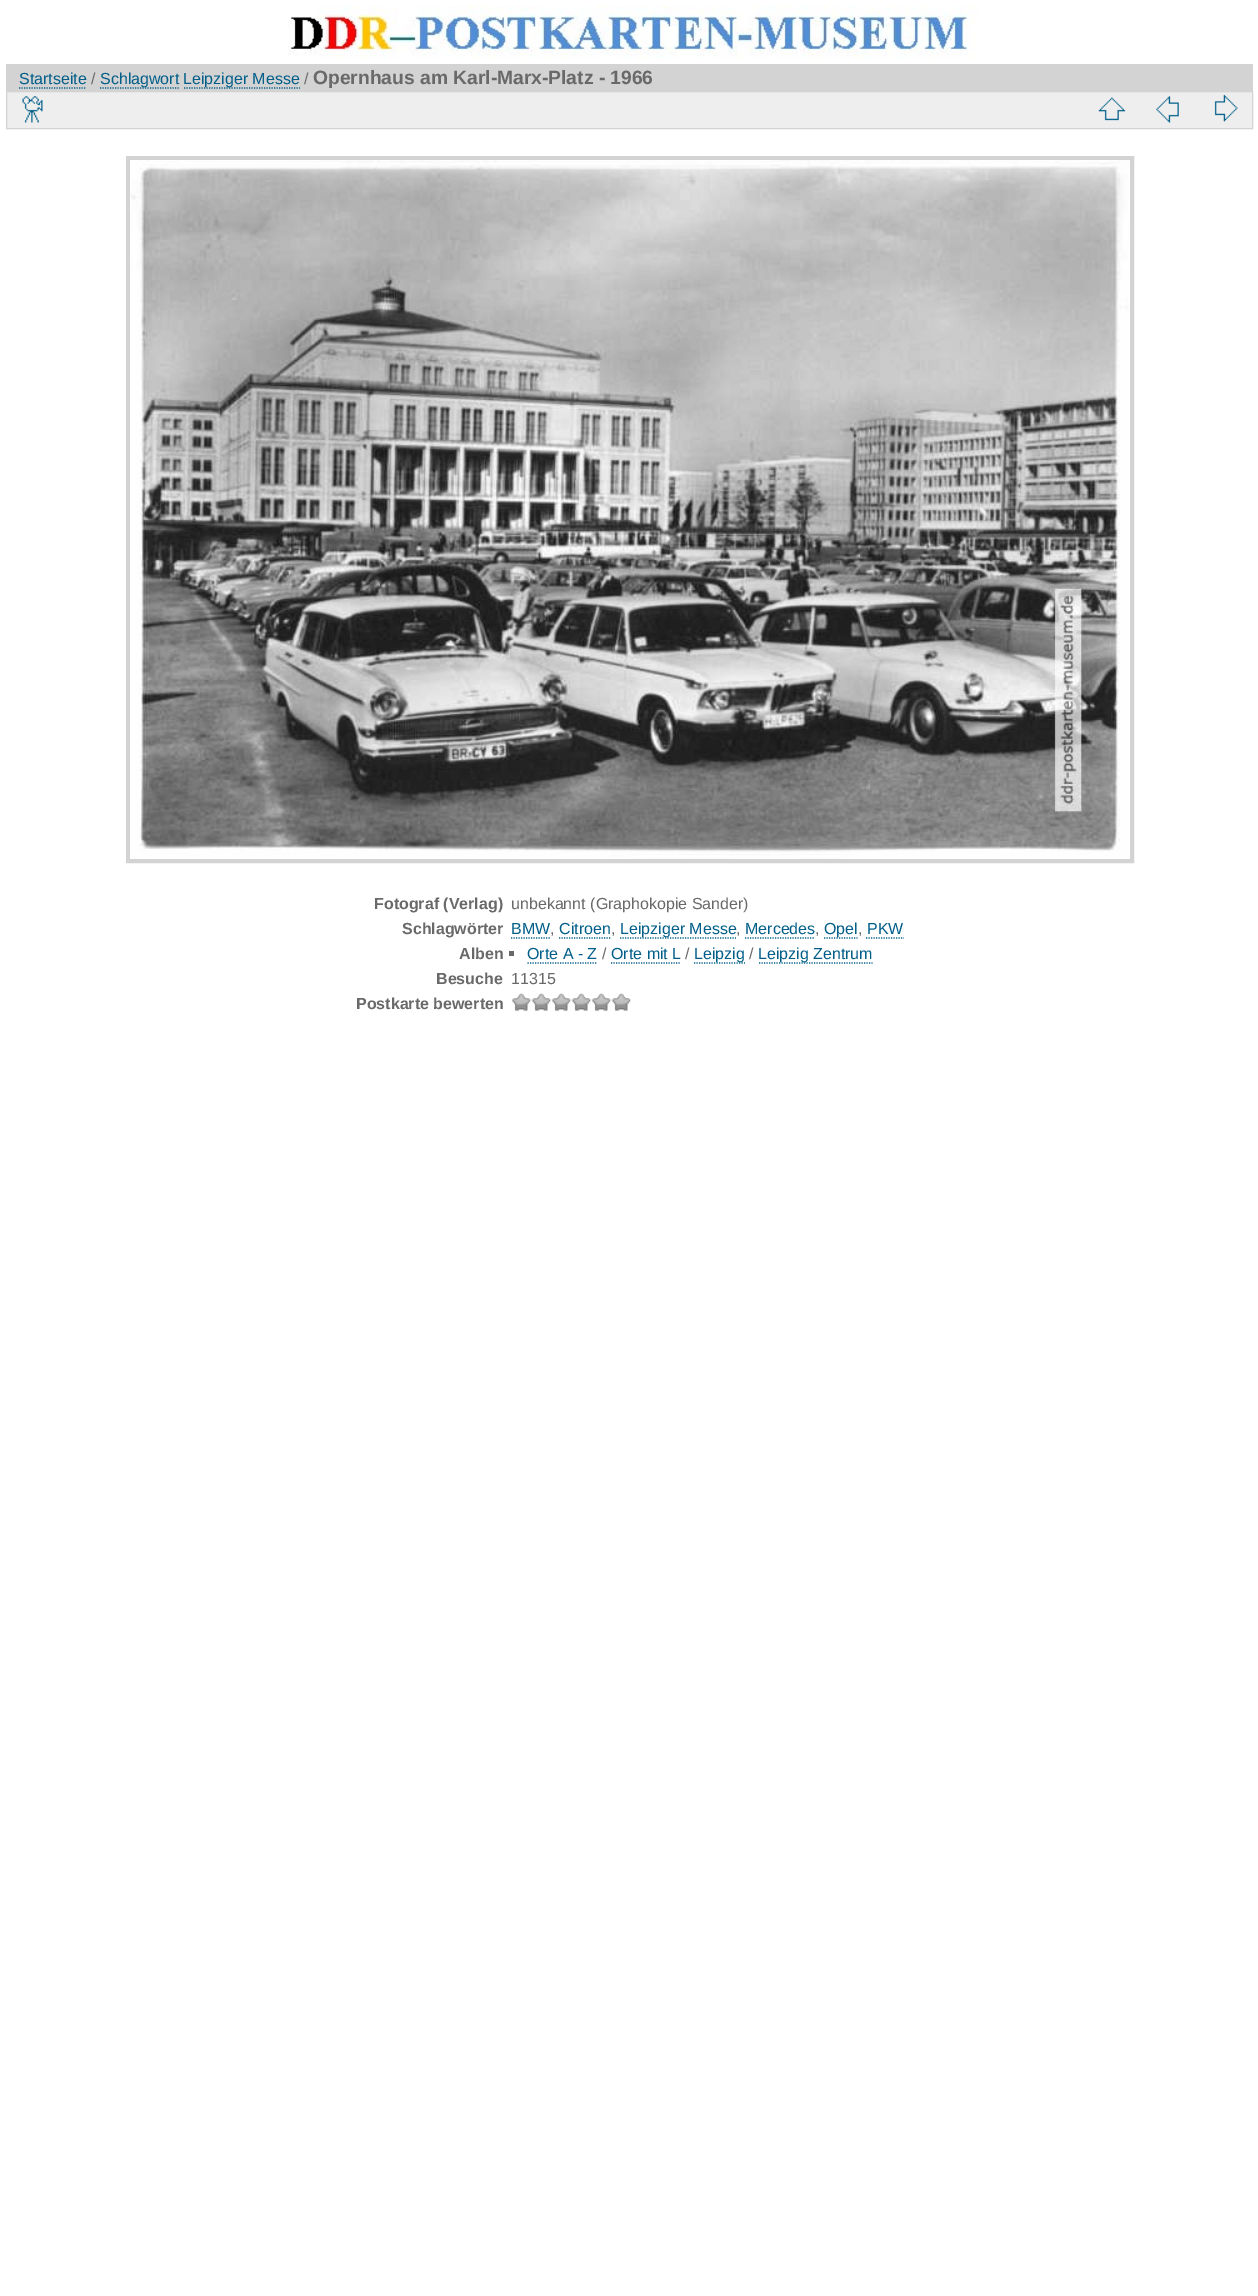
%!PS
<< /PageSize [1258 2296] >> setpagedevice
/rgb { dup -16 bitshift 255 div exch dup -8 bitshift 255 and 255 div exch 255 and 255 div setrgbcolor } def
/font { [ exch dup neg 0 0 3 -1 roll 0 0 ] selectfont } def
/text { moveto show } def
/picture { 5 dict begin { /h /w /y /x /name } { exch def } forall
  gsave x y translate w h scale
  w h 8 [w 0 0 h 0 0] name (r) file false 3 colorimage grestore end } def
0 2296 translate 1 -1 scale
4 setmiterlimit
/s1 { /LiberationSans-Regular 16 font 16#005E89 rgb } def
/s2 { /LiberationSans-Regular 16 font 16#696969 rgb } def
/s3 { /LiberationSans-Bold 19.25 font 16#696969 rgb } def
/s4 { /LiberationSans-Bold 16 font 16#696969 rgb } def
16#FFFFFF rgb
0 0 1258 2296 rectfill
(pic1.raw) 288 6 690 54 picture
16#D3D3D3 rgb
6 64 1247 27 rectfill
s1
(Startseite) 19 84 text
1.2 setlinewidth
[1.25 1.25] 0 setdash
19 88 moveto 86 88 lineto stroke
s2
(/) 91 84 text
16#005E89 rgb
100 88 moveto 179 88 lineto stroke
(Schlagwort) 100 84 text
184 88 moveto 300 88 lineto stroke
(Leipziger Messe) 183 84 text
s2
(/) 304 84 text
s3
(Opernhaus am Karl-Marx-Platz - 1966) 313 84 text
16#EEEEEE rgb
6.5 91.5 moveto 1252.5 91.5 lineto 1252.5 128.5 lineto 6.5 128.5 lineto closepath gsave fill grestore
16#D3D3D3 rgb
1 setlinewidth
[] 0 setdash
stroke
(pic2.raw) 22 96 21 27 picture
(pic3.raw) 1098 97 28 24 picture
(pic4.raw) 1156 96 23 27 picture
(pic5.raw) 1214 94 24 28 picture
4 setlinewidth
128 158 1004 703 rectstroke
(pic6.raw) 130 160 999 699 picture
s4
(Fotograf \(Verlag\)) 374 909 text
s2
(unbekannt \(Graphokopie Sander\)) 511 909 text
s4
(Schlagwörter) 402 934 text
s1
(BMW) 511 934 text
1.2 setlinewidth
[1.25 1.25] 0 setdash
511 938 moveto 550 938 lineto stroke
(Citroen) 559 934 text
559 938 moveto 611 938 lineto stroke
620 938 moveto 736 938 lineto stroke
(Leipziger Messe) 620 934 text
(Mercedes) 745 934 text
745 938 moveto 815 938 lineto stroke
824 938 moveto 857.5 938 lineto stroke
(Opel) 824 934 text
(PKW) 867 934 text
866 938 moveto 904 938 lineto stroke
s2
(,) 550 934 text
(,) 611 934 text
(,) 736 934 text
(,) 815 934 text
(,) 858 934 text
s4
(Alben) 459 959 text
509 951 5 5 rectfill
s1
(Orte A - Z) 527 959 text
527.5 963 moveto 597.5 963 lineto stroke
s2
(/) 602 959 text
s1
(Orte mit L) 611 959 text
611 963 moveto 681 963 lineto stroke
s2
(/) 685 959 text
16#005E89 rgb
694 963 moveto 745 963 lineto stroke
(Leipzig) 694 959 text
s2
(/) 749 959 text
16#005E89 rgb
759 963 moveto 872.5 963 lineto stroke
(Leipzig Zentrum) 758 959 text
s4
(Besuche) 436 984 text
s2
(11315) 511 984 text
s4
(Postkarte bewerten) 356 1009 text
(pic7.raw) 511 993 21 18 picture
(pic8.raw) 531 993 21 18 picture
(pic8.raw) 551 993 21 18 picture
(pic8.raw) 571 993 21 18 picture
(pic8.raw) 591 993 21 18 picture
(pic8.raw) 611 993 21 18 picture
showpage
